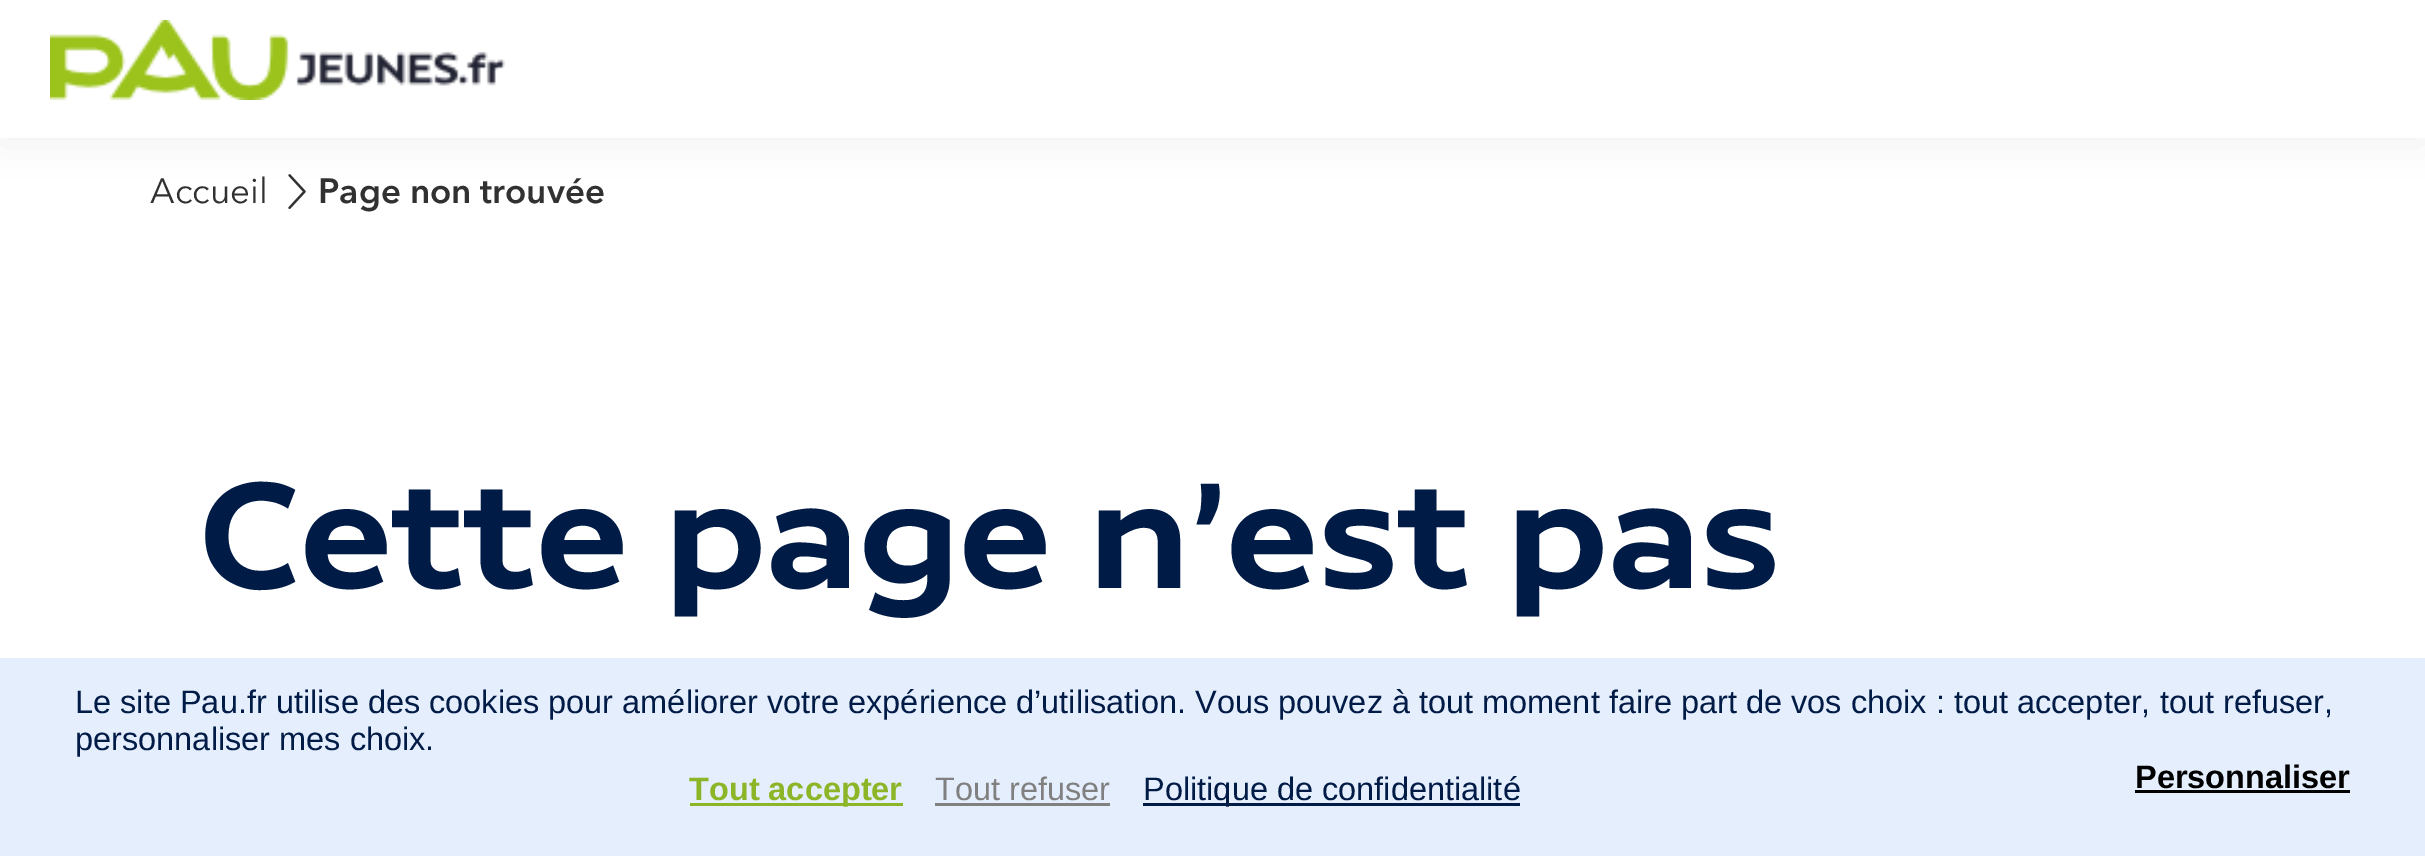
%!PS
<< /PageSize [2425 856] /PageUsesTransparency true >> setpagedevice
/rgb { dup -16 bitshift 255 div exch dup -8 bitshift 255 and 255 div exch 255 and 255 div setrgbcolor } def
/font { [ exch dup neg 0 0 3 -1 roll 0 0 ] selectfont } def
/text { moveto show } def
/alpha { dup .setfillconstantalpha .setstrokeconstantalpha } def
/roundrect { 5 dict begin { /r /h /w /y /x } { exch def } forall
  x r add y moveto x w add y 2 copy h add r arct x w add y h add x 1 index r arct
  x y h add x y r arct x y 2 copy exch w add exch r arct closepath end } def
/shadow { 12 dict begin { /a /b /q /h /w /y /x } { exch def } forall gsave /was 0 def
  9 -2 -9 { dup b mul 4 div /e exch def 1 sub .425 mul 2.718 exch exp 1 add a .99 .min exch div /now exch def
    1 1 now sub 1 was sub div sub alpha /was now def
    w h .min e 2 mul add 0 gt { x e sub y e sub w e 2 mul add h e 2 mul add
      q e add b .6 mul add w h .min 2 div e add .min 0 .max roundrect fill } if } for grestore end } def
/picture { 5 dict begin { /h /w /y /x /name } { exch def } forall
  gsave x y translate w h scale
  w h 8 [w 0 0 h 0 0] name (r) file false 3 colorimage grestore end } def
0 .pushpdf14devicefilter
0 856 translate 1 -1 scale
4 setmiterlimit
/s1 { /AvenirNext-Regular 35 font 16#313131 rgb } def
/s2 { /AvenirNext-SemiBold 35 font 16#313131 rgb } def
/s3 { /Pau-Bold 150 font 16#001B46 rgb } def
/s4 { /LiberationSans-Regular 32.5 font 16#001B46 rgb } def
/s5 { /LiberationSans-Bold 32.5 font 16#8CB528 rgb } def
/s6 { /LiberationSans-Regular 32.5 font 16#808080 rgb } def
/s7 { /LiberationSans-Bold 32.5 font 16#000000 rgb } def
16#FFFFFF rgb
0 0 2425 856 rectfill
(pic2.raw) 288 174 18 35 picture
16#000000 rgb
0 8 2425 137 0 20 0.05 shadow
16#FFFFFF rgb
0 0 2425 138 rectfill
(pic1.raw) 50 20 455 80 picture
s1
(Accueil) 150 203 text
s2
(Page non trouvée) 318 203 text
s3
(Cette page n'est pas) 200 588 text
16#E5EEFC rgb
0 658 2425 198 rectfill
s4
(Le site Pau.fr utilise des cookies pour améliorer votre expérience d’utilisation. Vous pouvez à tout moment faire part de vos choix : tout accepter, tout refuser,) 75 713 text
(personnaliser mes choix.) 75 750 text
16#8CB528 rgb
690 803 213 3 rectfill
s5
(Tout accepter) 689 800 text
s6
(Tout refuser) 935 800 text
935 803 175 3 rectfill
16#001B46 rgb
1143 803 377 3 rectfill
(Politique de confidentialité) 1143 800 text
s7
(Personnaliser) 2135 788 text
2135 790 215 3 rectfill
.poppdf14devicefilter showpage
